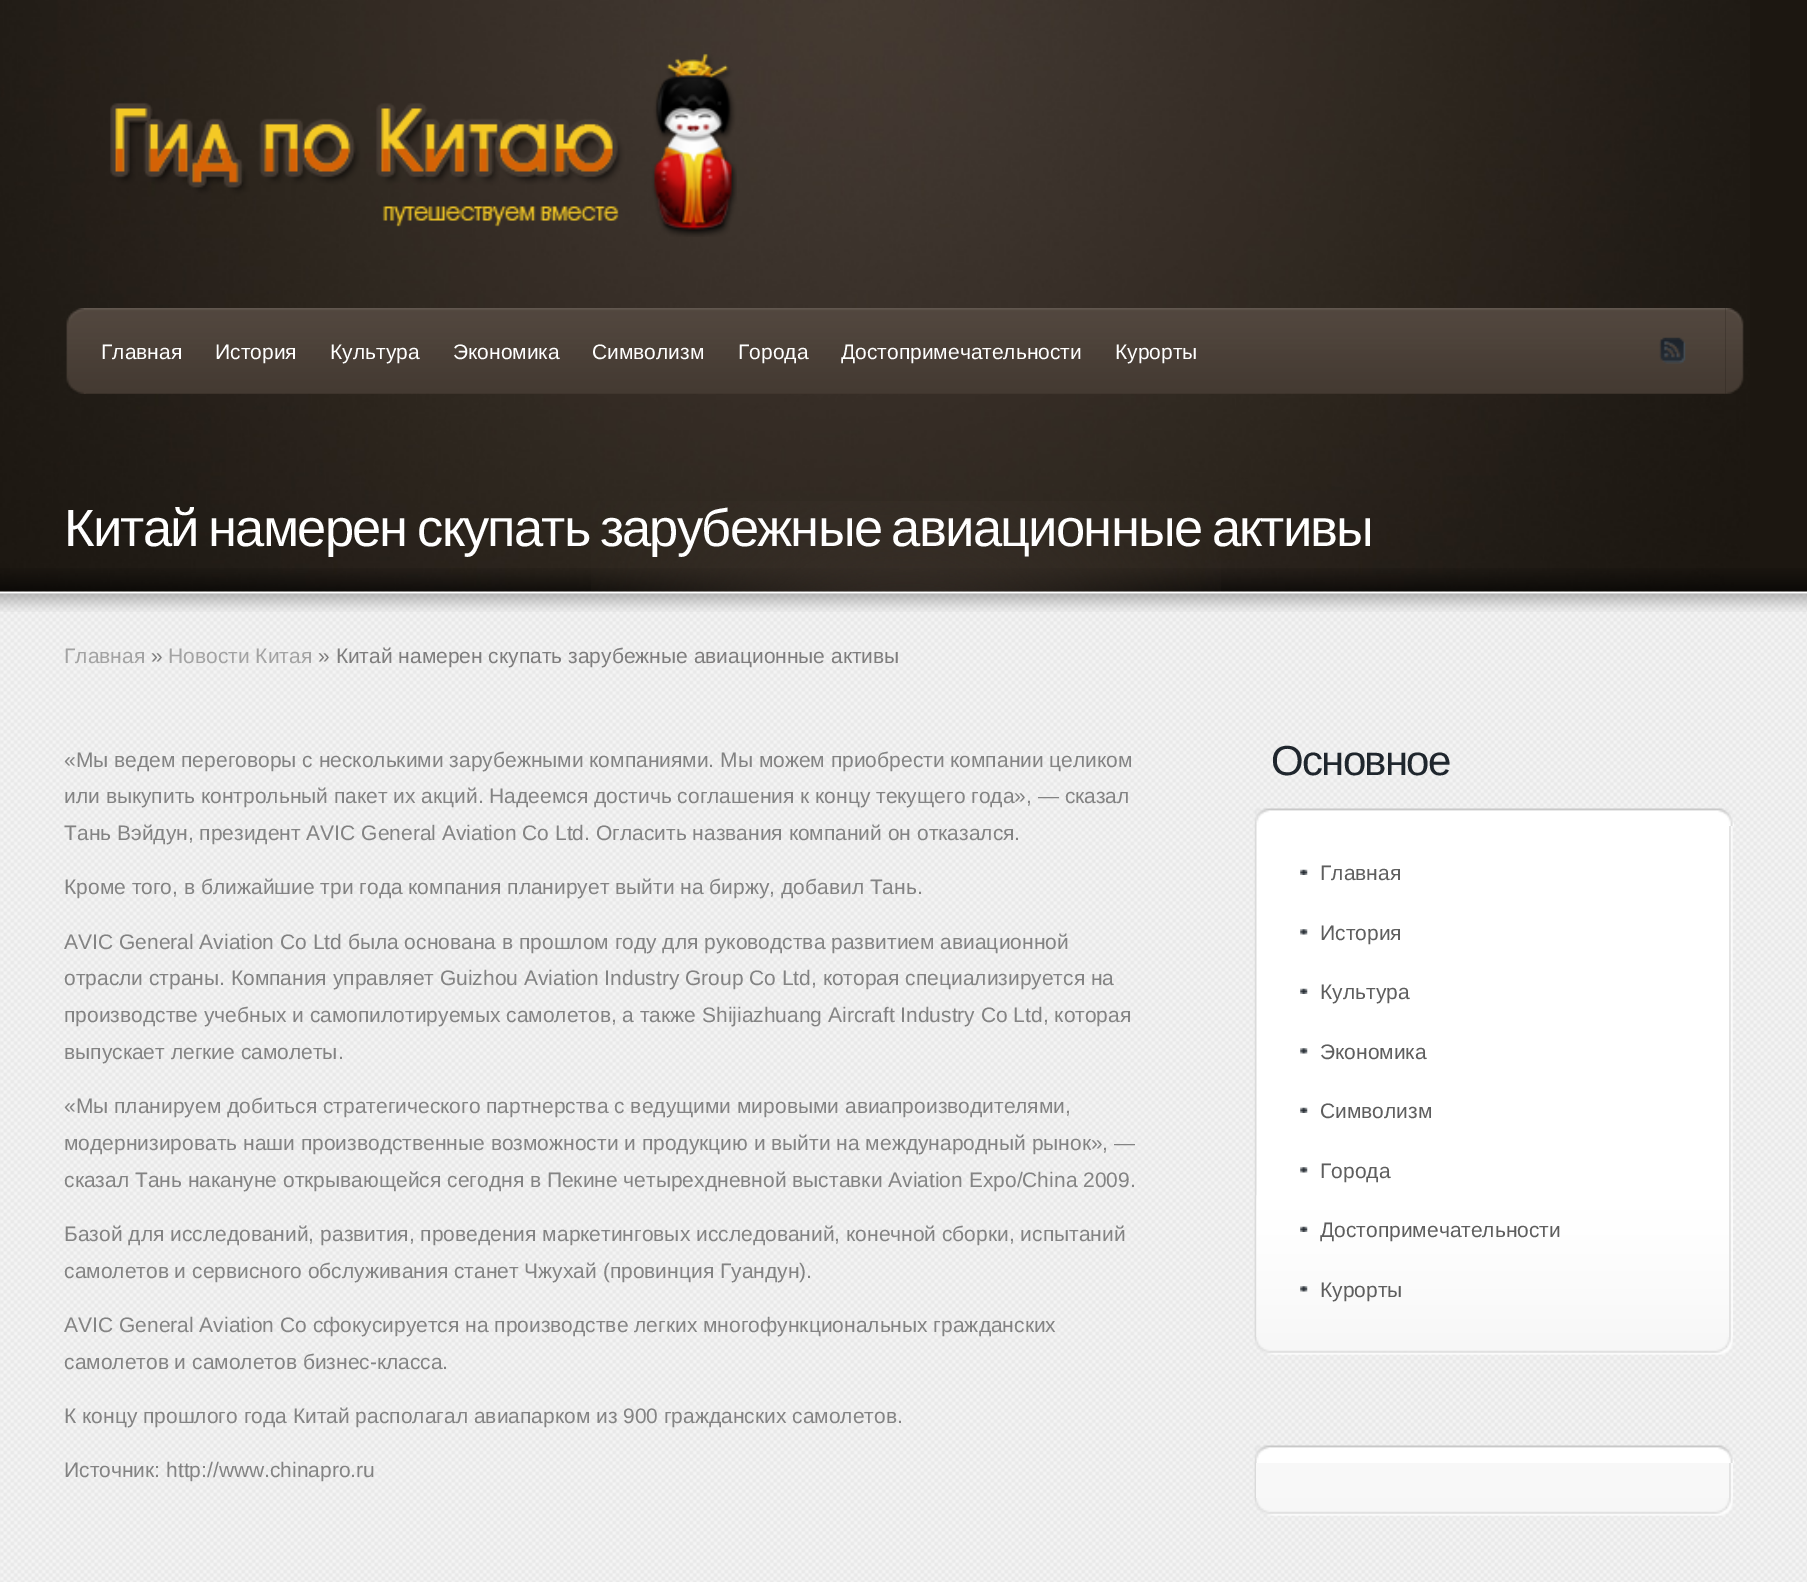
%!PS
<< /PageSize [1807 1582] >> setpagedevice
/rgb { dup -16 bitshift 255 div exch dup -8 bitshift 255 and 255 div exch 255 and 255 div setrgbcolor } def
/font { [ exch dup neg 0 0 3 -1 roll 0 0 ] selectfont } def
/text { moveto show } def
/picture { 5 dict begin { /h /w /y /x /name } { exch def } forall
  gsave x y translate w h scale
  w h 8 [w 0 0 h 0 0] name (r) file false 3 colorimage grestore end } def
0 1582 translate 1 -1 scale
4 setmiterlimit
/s1 { /LiberationSans-Regular 21 font 16#FFFFFF rgb } def
/s2 { /LiberationSans-Regular 21 font 16#A3A3A3 rgb } def
/s3 { /LiberationSans-Regular 21 font 16#7E7D7D rgb } def
/s4 { /LiberationSans-Regular 21 font 16#838383 rgb } def
/s5 { /LiberationSans-Regular 21 font 16#5E5E5E rgb } def
16#1C1711 rgb
0 0 1807 1582 rectfill
(pic1.raw) 0 0 1750 592 picture
(pic2.raw) 0 568 1807 24 picture
(pic3.raw) 591 501 630 91 picture
(pic4.raw) 110 53 627 184 picture
(pic5.raw) 66 308 20 86 picture
(pic6.raw) 1725 308 19 86 picture
(pic7.raw) 84 308 1642 86 picture
s1
(Главная) 101 359 text
(История) 215 359 text
(Культура) 330 359 text
(Экономика) 453 359 text
(Символизм) 592 359 text
(Города) 738 359 text
(Достопримечательности) 841 359 text
(Курорты) 1115 359 text
(pic8.raw) 1659 337 27 27 picture
/LiberationSans-Regular 52.5 font
64 546 moveto -2.5 0 32 -1.75 0 (Китай намерен скупать зарубежные авиационные активы) awidthshow
(pic9.raw) 0 591 1807 991 picture
0 592 1807 2 rectfill
(pic10.raw) 0 593 1807 19 picture
s2
(Главная) 64 663 text
s3
(») 151 663 text
s2
(Новости Китая) 168 663 text
s3
(» Китай намерен скупать зарубежные авиационные активы) 318 663 text
s4
(«Мы ведем переговоры с несколькими зарубежными компаниями. Мы можем приобрести компании целиком) 64 767 text
(или выкупить контрольный пакет их акций. Надеемся достичь соглашения к концу текущего года», — сказал) 64 803 text
(Тань Вэйдун, президент AVIC General Aviation Co Ltd. Огласить названия компаний он отказался.) 64 840 text
(Кроме того, в ближайшие три года компания планирует выйти на биржу, добавил Тань.) 64 894 text
(AVIC General Aviation Co Ltd была основана в прошлом году для руководства развитием авиационной) 64 949 text
(отрасли страны. Компания управляет Guizhou Aviation Industry Group Co Ltd, которая специализируется на) 64 985 text
(производстве учебных и самопилотируемых самолетов, а также Shijiazhuang Aircraft Industry Co Ltd, которая) 64 1022 text
(выпускает легкие самолеты.) 64 1059 text
(«Мы планируем добиться стратегического партнерства с ведущими мировыми авиапроизводителями,) 64 1113 text
(модернизировать наши производственные возможности и продукцию и выйти на международный рынок», —) 64 1150 text
(сказал Тань накануне открывающейся сегодня в Пекине четырехдневной выставки Aviation Expo/China 2009.) 64 1187 text
(Базой для исследований, развития, проведения маркетинговых исследований, конечной сборки, испытаний) 64 1241 text
(самолетов и сервисного обслуживания станет Чжухай \(провинция Гуандун\).) 64 1278 text
(AVIC General Aviation Co сфокусируется на производстве легких многофункциональных гражданских) 64 1332 text
(самолетов и самолетов бизнес-класса.) 64 1369 text
(К концу прошлого года Китай располагал авиапарком из 900 гражданских самолетов.) 64 1423 text
(Источник: http://www.chinapro.ru) 64 1477 text
/LiberationSans-Regular 42 font
16#1F262D rgb
1271 775 moveto -1.75 0 (Основное) ashow
(pic11.raw) 1254 808 480 18 picture
(pic12.raw) 1254 1197 479 158 picture
(pic13.raw) 1254 826 479 511 picture
16#FFFFFF rgb
1728 826 1 370 rectfill
(pic14.raw) 1256 1195 473 142 picture
(pic15.raw) 1300 869 8 6 picture
s5
(Главная) 1320 880 text
(pic16.raw) 1300 929 8 6 picture
(История) 1320 940 text
(pic15.raw) 1300 988 8 6 picture
(Культура) 1320 999 text
(pic16.raw) 1300 1048 8 6 picture
(Экономика) 1320 1059 text
(pic15.raw) 1300 1107 8 6 picture
(Символизм) 1320 1118 text
(pic16.raw) 1300 1167 8 6 picture
(Города) 1320 1178 text
(pic17.raw) 1300 1226 8 6 picture
(Достопримечательности) 1320 1237 text
(pic18.raw) 1300 1286 8 6 picture
(Курорты) 1320 1297 text
(pic11.raw) 1254 1445 480 18 picture
(pic19.raw) 1254 1463 479 53 picture
(pic20.raw) 1254 1463 479 35 picture
16#F8F8F8 rgb
1256 1463 472 35 rectfill
showpage
